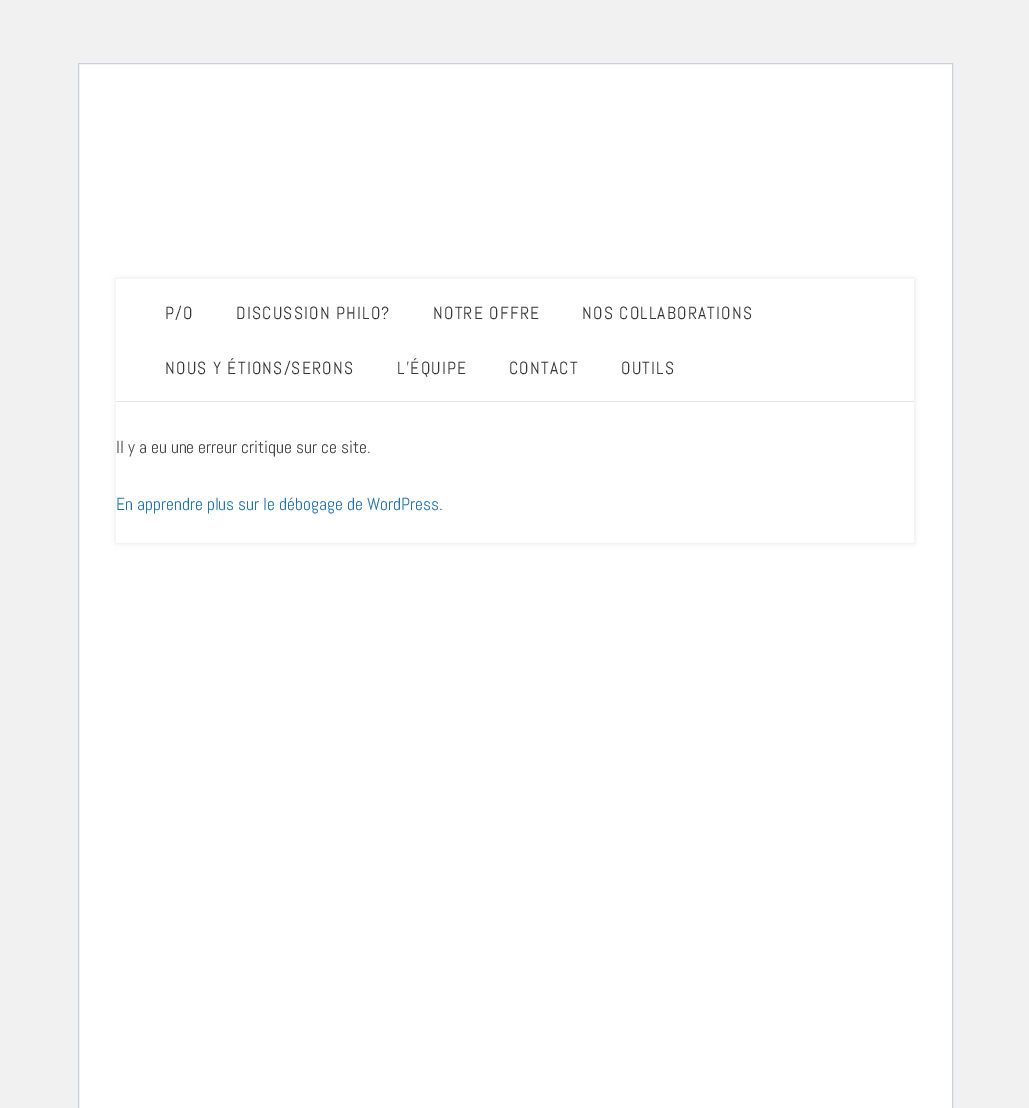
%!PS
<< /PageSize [1029 1108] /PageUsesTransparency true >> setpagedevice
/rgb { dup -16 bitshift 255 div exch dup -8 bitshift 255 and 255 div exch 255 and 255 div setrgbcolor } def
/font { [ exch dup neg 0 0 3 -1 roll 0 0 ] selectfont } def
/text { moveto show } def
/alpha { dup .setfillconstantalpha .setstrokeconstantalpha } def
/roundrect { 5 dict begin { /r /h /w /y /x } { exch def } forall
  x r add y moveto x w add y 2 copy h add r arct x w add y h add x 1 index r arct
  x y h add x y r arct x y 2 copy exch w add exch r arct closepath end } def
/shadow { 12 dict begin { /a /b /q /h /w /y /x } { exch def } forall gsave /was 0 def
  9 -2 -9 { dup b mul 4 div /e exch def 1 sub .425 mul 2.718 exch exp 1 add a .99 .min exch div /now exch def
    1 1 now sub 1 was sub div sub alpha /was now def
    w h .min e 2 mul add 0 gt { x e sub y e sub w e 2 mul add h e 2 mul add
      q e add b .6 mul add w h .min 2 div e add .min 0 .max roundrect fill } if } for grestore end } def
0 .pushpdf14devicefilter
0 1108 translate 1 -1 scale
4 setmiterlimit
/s1 { /Abel-Regular 17.5 font 16#444444 rgb } def
/s2 { /Abel-Regular 17.5 font 16#2271B1 rgb } def
16#F1F1F1 rgb
0 0 1029 1108 rectfill
16#FFFFFF rgb
78.5 63.5 moveto 952.5 63.5 lineto 952.5 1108.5 lineto 78.5 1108.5 lineto closepath gsave fill grestore
16#CCD0D4 rgb
stroke
16#000000 rgb
116 279 798 264 0 3 0.1 shadow
16#FFFFFF rgb
116 279 798 264 rectfill
16#E5E5E5 rgb
116 401 798 1 rectfill
/Abel-Regular 17.5 font
16#353535 rgb
165 319 moveto 1.25 0 (P/O) ashow
236 319 moveto 1.25 0 (DISCUSSION PHILO?) ashow
433 319 moveto 1.25 0 (NOTRE OFFRE) ashow
582 319 moveto 1.25 0 (NOS COLLABORATIONS) ashow
165 374 moveto 1.25 0 (NOUS Y ÉTIONS/SERONS) ashow
397 374 moveto 1.25 0 (L’ÉQUIPE) ashow
509 374 moveto 1.25 0 (CONTACT) ashow
621 374 moveto 1.25 0 (OUTILS) ashow
s1
(Il y a eu une erreur critique sur ce site.) 116 453 text
s2
(En apprendre plus sur le débogage de WordPress.) 116 510 text
.poppdf14devicefilter showpage
